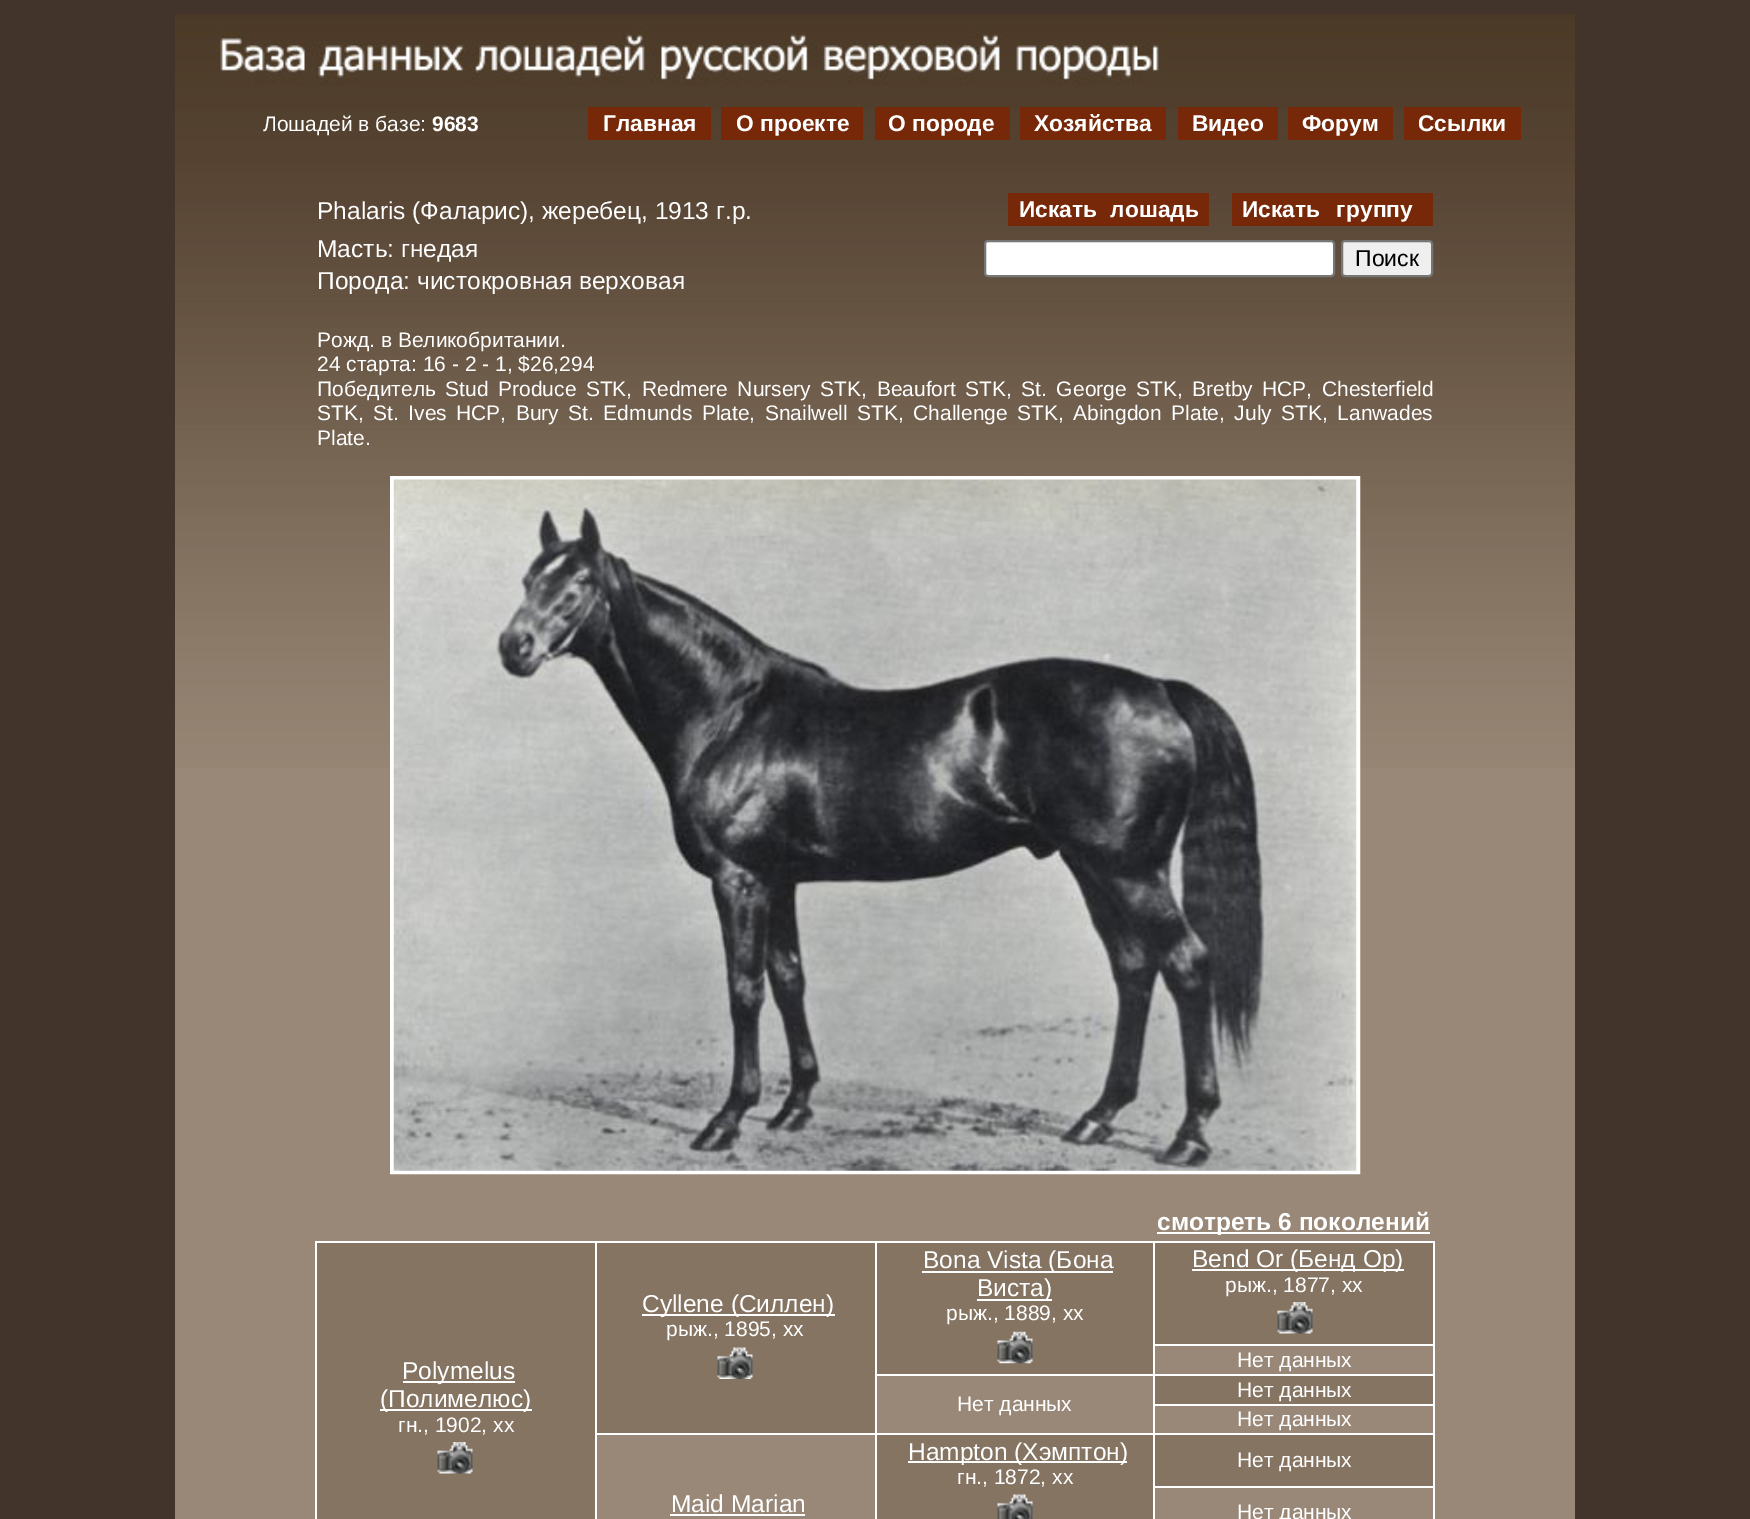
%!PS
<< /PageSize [1750 1519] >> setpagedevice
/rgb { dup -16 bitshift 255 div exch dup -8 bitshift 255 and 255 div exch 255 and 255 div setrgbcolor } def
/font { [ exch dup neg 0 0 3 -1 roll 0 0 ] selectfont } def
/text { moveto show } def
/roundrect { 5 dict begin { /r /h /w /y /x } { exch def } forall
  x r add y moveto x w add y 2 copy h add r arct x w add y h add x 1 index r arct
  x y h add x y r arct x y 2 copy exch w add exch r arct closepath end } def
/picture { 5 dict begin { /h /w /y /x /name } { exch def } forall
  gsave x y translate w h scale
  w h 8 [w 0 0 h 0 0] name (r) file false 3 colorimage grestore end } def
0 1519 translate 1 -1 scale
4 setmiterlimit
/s1 { /LiberationSans-Regular 21 font 16#FFFFFF rgb } def
/s2 { /LiberationSans-Bold 21 font 16#FFFFFF rgb } def
/s3 { /LiberationSans-Bold 22.75 font 16#FFFFFF rgb } def
/s4 { /LiberationSans-Regular 24.5 font 16#FFFFFF rgb } def
/s5 { /LiberationSans-Regular 23 font 16#000000 rgb } def
/s6 { /LiberationSans-Bold 24.5 font 16#FFFFFF rgb } def
16#42342B rgb
0 0 1750 1519 rectfill
16#998878 rgb
175 768 1400 751 rectfill
(pic1.raw) 175 14 1400 754 picture
(pic2.raw) 217 28 946 56 picture
s1
(Лошадей в базе:) 263 131 text
s2
(9683) 432 131 text
16#772809 rgb
588 107 123 33 rectfill
s3
(Главная) 603 131 text
16#772809 rgb
721 107 142 33 rectfill
s3
(О проекте) 736 131 text
16#772809 rgb
875 107 135 33 rectfill
s3
(O породе) 888 131 text
16#772809 rgb
1020 107 146 33 rectfill
s3
(Хозяйства) 1034 131 text
16#772809 rgb
1178 107 100 33 rectfill
s3
(Видео) 1192 131 text
16#772809 rgb
1288 107 105 33 rectfill
s3
(Форум) 1302 131 text
16#772809 rgb
1404 107 117 33 rectfill
s3
(Ссылки) 1418 131 text
s4
(Phalaris \(Фаларис\), жеребец, 1913 г.р.) 317 219 text
16#772809 rgb
1008 193 201 33 rectfill
/LiberationSans-Bold 22.75 font
16#FFFFFF rgb
1019 217 moveto 7 0 32 (Искать лошадь) widthshow
16#772809 rgb
1232 193 201 33 rectfill
16#FFFFFF rgb
1242 217 moveto 10 0 32 (Искать группу) widthshow
985 241 349 35 3 roundrect gsave fill grestore
16#767676 rgb
2 setlinewidth
stroke
16#EFEFEF rgb
1342 241 90 35 3 roundrect gsave fill grestore
16#767676 rgb
stroke
s5
(Поиск) 1355 266 text
s4
(Масть: гнедая) 317 257 text
(Порода: чистокровная верховая) 317 289 text
s1
(Рожд. в Великобритании.) 317 347 text
(24 старта: 16 - 2 - 1, $26,294) 317 371 text
317 396 moveto 3.6 0 32 (Победитель Stud Produce STK, Redmere Nursery STK, Beaufort STK, St. George STK, Bretby HCP, Chesterfield) widthshow
317 420 moveto 3.6 0 32 (STK, St. Ives HCP, Bury St. Edmunds Plate, Snailwell STK, Challenge STK, Abingdon Plate, July STK, Lanwades) widthshow
(Plate.) 317 445 text
4 setlinewidth
392 478 966 694 rectstroke
(pic3.raw) 393 479 964 692 picture
1157 1232 273 2 rectfill
s6
(смотреть 6 поколений) 1157 1230 text
315 1241 1120 2 rectfill
1433 1241 2 278 rectfill
315 1241 2 278 rectfill
16#857462 rgb
597 1243 278 190 rectfill
16#FFFFFF rgb
642 1314 193 2 rectfill
s4
(Cyllene \(Силлен\)) 642 1312 text
s1
(рыж., 1895, xx) 666 1336 text
(pic4.raw) 717 1347 36 32 picture
16#857462 rgb
877 1243 276 131 rectfill
16#FFFFFF rgb
922 1271 191 2 rectfill
s4
(Bona Vista \(Бона) 923 1268 text
977 1299 75 2 rectfill
(Виста\)) 977 1296 text
s1
(рыж., 1889, xx) 946 1320 text
(pic5.raw) 997 1331 36 33 picture
16#857462 rgb
1155 1243 278 101 rectfill
16#FFFFFF rgb
1192 1269 212 2 rectfill
s4
(Bend Or \(Бенд Ор\)) 1192 1267 text
s1
(рыж., 1877, xx) 1225 1292 text
(pic6.raw) 1277 1302 36 32 picture
16#857462 rgb
317 1243 278 276 rectfill
16#FFFFFF rgb
403 1381 112 2 rectfill
s4
(Polymelus) 402 1379 text
380 1409 152 2 rectfill
(\(Полимелюс\)) 380 1407 text
s1
(гн., 1902, xx) 398 1432 text
(pic7.raw) 437 1442 36 32 picture
1153 1344 282 2 rectfill
1153 1374 282 2 rectfill
1153 1404 282 2 rectfill
1153 1433 282 2 rectfill
1153 1486 282 2 rectfill
1153 1486 2 33 rectfill
1153 1433 2 55 rectfill
875 1433 280 2 rectfill
1153 1404 2 31 rectfill
1153 1374 2 31 rectfill
875 1374 280 2 rectfill
1153 1241 2 135 rectfill
(Нет данных) 1237 1367 text
16#857462 rgb
1155 1376 278 28 rectfill
s1
(Нет данных) 1237 1397 text
875 1433 2 86 rectfill
595 1433 282 2 rectfill
875 1241 2 194 rectfill
(Нет данных) 957 1411 text
(Нет данных) 1237 1426 text
16#857462 rgb
877 1435 276 84 rectfill
16#FFFFFF rgb
908 1461 219 2 rectfill
s4
(Hampton \(Хэмптон\)) 908 1460 text
s1
(гн., 1872, xx) 957 1484 text
(pic8.raw) 997 1494 36 25 picture
16#857462 rgb
1155 1435 278 51 rectfill
s1
(Нет данных) 1237 1467 text
595 1241 2 278 rectfill
s4
(Maid Marian) 671 1512 text
670 1514 135 2 rectfill
s1
(Нет данных) 1237 1519 text
showpage
